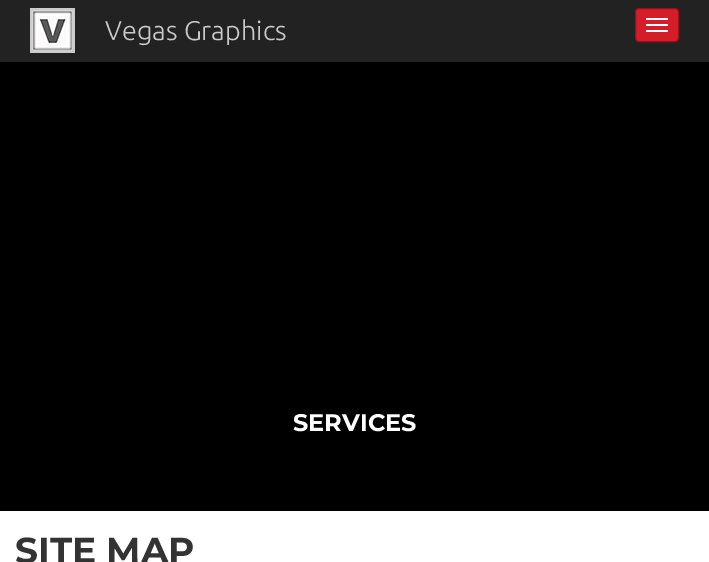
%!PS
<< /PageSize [709 562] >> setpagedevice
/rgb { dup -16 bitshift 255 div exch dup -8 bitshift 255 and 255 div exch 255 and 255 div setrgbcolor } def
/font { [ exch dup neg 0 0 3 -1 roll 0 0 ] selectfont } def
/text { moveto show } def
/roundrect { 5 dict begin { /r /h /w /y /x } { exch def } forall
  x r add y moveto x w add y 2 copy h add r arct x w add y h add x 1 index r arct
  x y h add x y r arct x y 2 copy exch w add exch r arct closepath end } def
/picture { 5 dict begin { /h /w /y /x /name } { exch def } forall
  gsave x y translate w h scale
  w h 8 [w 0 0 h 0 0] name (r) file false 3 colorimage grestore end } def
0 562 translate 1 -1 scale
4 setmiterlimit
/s1 { /Ubuntu-Light 27 font 16#CACACA rgb } def
/s2 { /Montserrat-Bold 24 font 16#FFFFFF rgb } def
/s3 { /Montserrat-Bold 36 font 16#333333 rgb } def
16#FFFFFF rgb
0 0 709 562 rectfill
16#222222 rgb
0 0 709 62 rectfill
(pic1.raw) 30 8 45 45 picture
s1
(Vegas Graphics) 105 40 text
16#D51C29 rgb
635.5 8.5 43 33 3.5 roundrect gsave fill grestore
16#9B0F18 rgb
stroke
16#FFFFFF rgb
646 18 22 2 1 roundrect fill
646 24 22 2 1 roundrect fill
646 30 22 2 1 roundrect fill
16#000000 rgb
0 62 709 449 rectfill
s2
(SERVICES) 293 431 text
s3
(SITE MAP) 15 563 text
showpage
